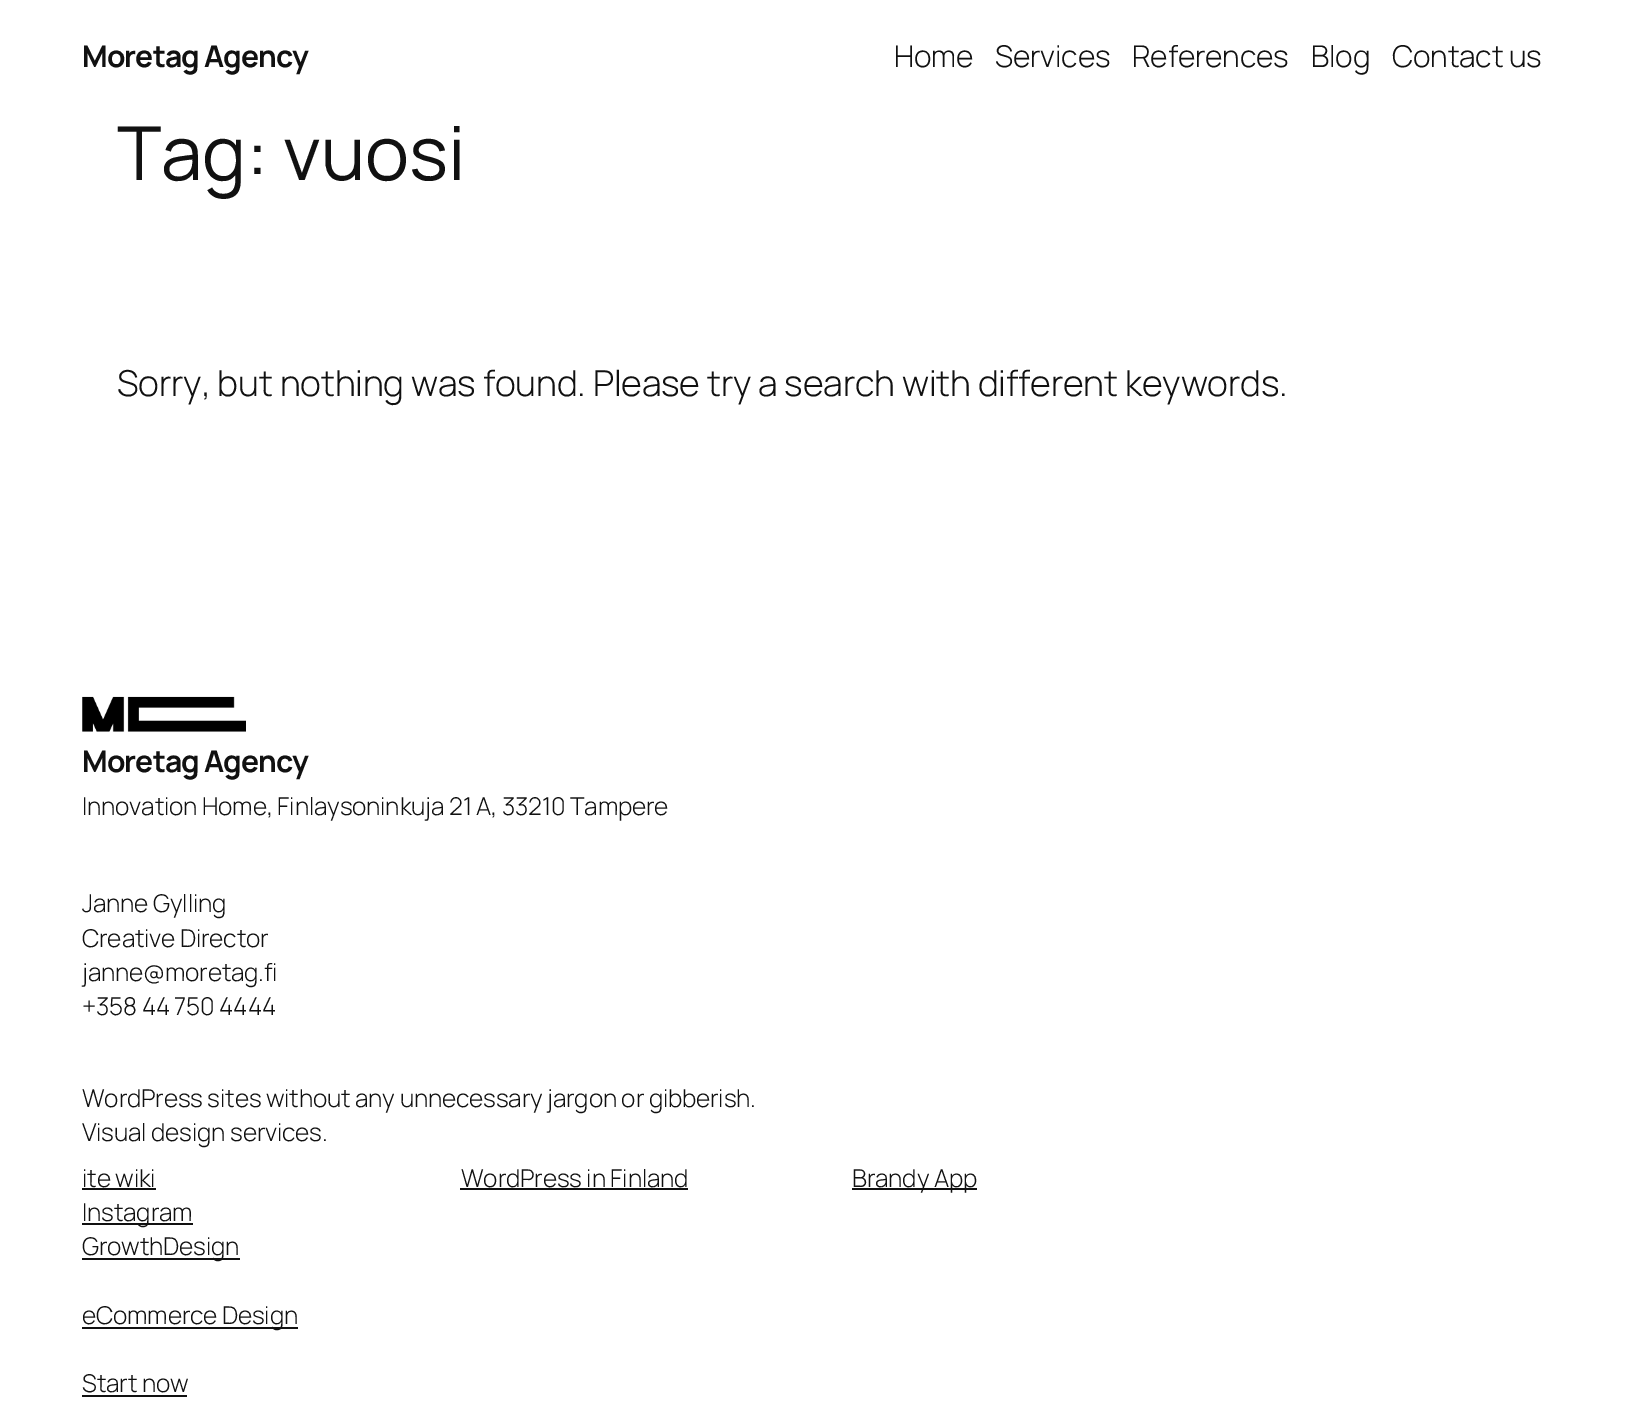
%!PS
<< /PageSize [1633 1409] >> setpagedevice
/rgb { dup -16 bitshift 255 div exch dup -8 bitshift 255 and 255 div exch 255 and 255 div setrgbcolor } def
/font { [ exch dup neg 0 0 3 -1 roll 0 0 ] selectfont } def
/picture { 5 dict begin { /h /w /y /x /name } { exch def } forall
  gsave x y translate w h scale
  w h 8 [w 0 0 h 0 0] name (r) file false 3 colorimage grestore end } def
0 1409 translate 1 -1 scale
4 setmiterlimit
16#FFFFFF rgb
0 0 1633 1409 rectfill
/Manrope-Bold 30 font
16#111111 rgb
82 67 moveto -0.9 0 (Moretag Agency) ashow
/Manrope-Light 30 font
894 67 moveto -0.18 0 (Home) ashow
995 67 moveto -0.18 0 (Services) ashow
1132 67 moveto -0.18 0 (References) ashow
1311 67 moveto -0.18 0 (Blog) ashow
1392 67 moveto -0.18 0 (Contact us) ashow
/Manrope-Regular 74.5 font
117 180 moveto -0.18 0 (Tag: vuosi) ashow
/Manrope-Light 35.7 font
117 396 moveto -0.18 0 (Sorry, but nothing was found. Please try a search with different keywords.) ashow
(pic1.raw) 82 696 164 36 picture
/Manrope-Bold 30 font
82 772 moveto -0.9 0 (Moretag Agency) ashow
/Manrope-Light 24.5 font
82 815 moveto -0.18 0 (Innovation Home, Finlaysoninkuja 21 A, 33210 Tampere) ashow
82 912 moveto -0.18 0 (Janne Gylling) ashow
82 947 moveto -0.18 0 (Creative Director) ashow
82 981 moveto -0.18 0 (janne@moretag.fi) ashow
82 1015 moveto -0.18 0 (+358 44 750 4444) ashow
82 1107 moveto -0.18 0 (WordPress sites without any unnecessary jargon or gibberish.) ashow
82 1141 moveto -0.18 0 (Visual design services.) ashow
82 1187 moveto -0.18 0 (ite wiki) ashow
82 1188 74 2 rectfill
82 1223 111 2 rectfill
82 1221 moveto -0.18 0 (Instagram) ashow
82 1258 158 2 rectfill
82 1255 moveto -0.18 0 (GrowthDesign) ashow
82 1327 216 2 rectfill
82 1324 moveto -0.18 0 (eCommerce Design) ashow
82 1392 moveto -0.18 0 (Start now) ashow
82 1395 105 2 rectfill
461 1187 moveto -0.18 0 (WordPress in Finland) ashow
460 1188 228 2 rectfill
852 1188 125 2 rectfill
852 1187 moveto -0.18 0 (Brandy App) ashow
showpage
